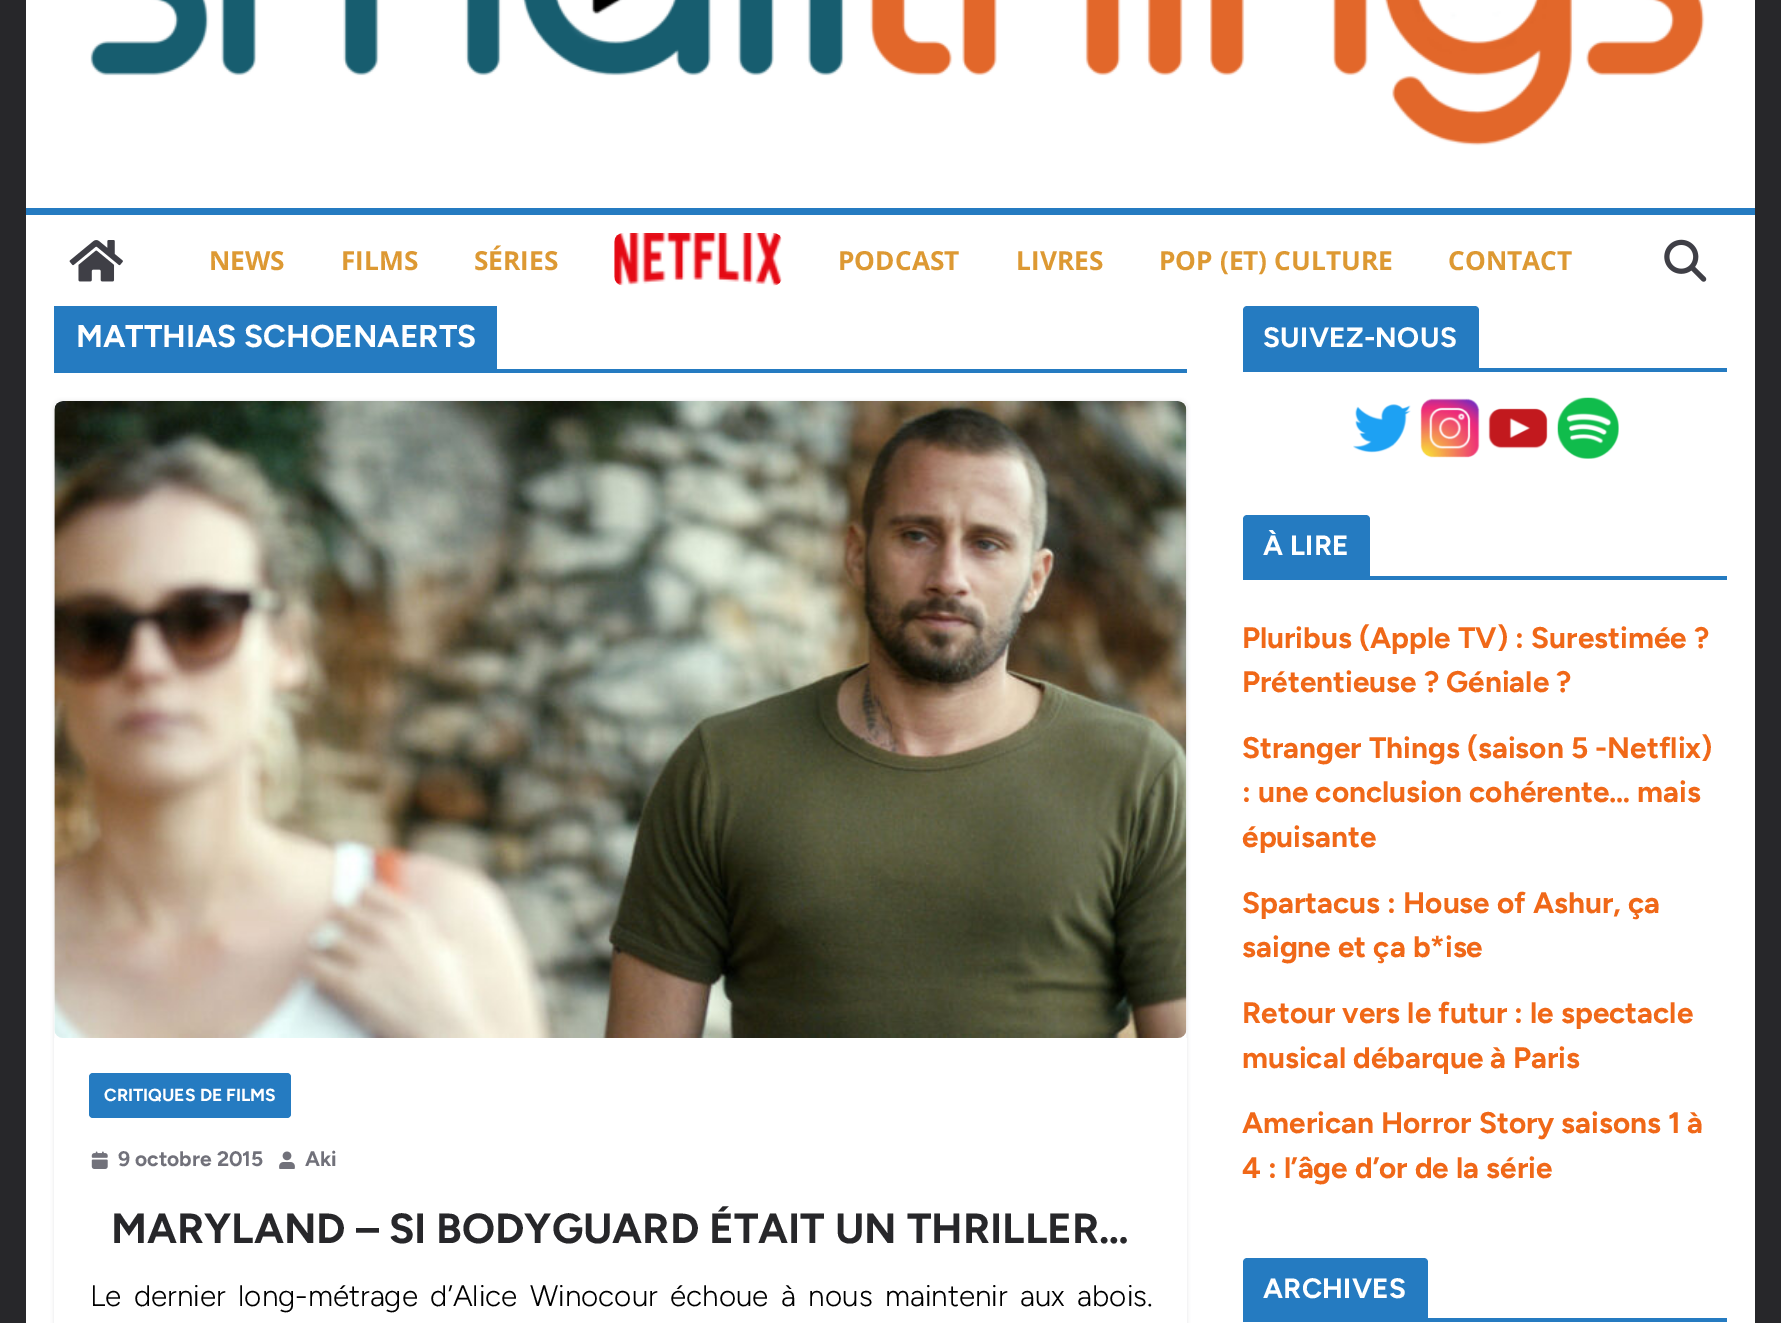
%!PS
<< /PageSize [1781 1323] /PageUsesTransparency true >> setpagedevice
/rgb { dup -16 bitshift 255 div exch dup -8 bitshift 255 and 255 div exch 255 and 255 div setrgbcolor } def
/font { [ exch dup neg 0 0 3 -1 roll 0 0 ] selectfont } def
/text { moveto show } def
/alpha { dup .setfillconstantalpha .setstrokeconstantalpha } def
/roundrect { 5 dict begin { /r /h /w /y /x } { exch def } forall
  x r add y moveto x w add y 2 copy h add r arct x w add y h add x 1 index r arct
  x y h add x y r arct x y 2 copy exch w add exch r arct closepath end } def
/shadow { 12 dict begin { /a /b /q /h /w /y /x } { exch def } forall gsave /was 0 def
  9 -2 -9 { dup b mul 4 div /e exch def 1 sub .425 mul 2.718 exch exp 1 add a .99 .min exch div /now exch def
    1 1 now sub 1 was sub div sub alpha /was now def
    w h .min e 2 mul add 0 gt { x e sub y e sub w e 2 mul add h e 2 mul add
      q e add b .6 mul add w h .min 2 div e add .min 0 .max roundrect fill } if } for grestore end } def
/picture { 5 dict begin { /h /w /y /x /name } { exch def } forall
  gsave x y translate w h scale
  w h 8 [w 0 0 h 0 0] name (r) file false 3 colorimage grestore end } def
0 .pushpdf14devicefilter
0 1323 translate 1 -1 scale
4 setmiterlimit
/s1 { /OpenSans-Bold 26.25 font 16#DD9933 rgb } def
/s2 { /Figtree-Bold 31.5 font 16#FFFFFF rgb } def
/s3 { /Figtree-Bold 17.5 font 16#FFFFFF rgb } def
/s4 { /Figtree-Bold 21 font 16#71717A rgb } def
/s5 { /Figtree-Bold 42 font 16#27272A rgb } def
/s6 { /Figtree-Bold 29.75 font 16#F06818 rgb } def
16#27272A rgb
0 0 1781 1323 rectfill
16#FFFFFF rgb
26 0 1729 1323 rectfill
(pic1.raw) 90 0 1615 146 picture
16#257BC1 rgb
26 208 1729 7 rectfill
(pic2.raw) 69 240 54 42 picture
s1
(NEWS) 209 270 text
(FILMS) 341 270 text
(SÉRIES) 474 270 text
(pic3.raw) 614 233 168 53 picture
(PODCAST) 838 270 text
(LIVRES) 1016 270 text
(POP \(ET\) CULTURE) 1159 270 text
(CONTACT) 1448 270 text
(pic4.raw) 1664 239 43 43 picture
16#257BC1 rgb
54 369 1133 4 rectfill
54 306 443 63 rectfill
s2
(MATTHIAS SCHOENAERTS) 76 347 text
gsave
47 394 moveto 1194 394 lineto 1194 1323 lineto 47 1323 lineto closepath 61 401 moveto 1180 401 lineto 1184 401 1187 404 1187 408 curveto 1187 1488 lineto 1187 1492 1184 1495 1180 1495 curveto 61 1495 lineto 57 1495 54 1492 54 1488 curveto 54 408 lineto 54 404 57 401 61 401 curveto closepath eoclip newpath
16#E4E4E7 rgb
54 401 1133 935 7 2 1 shadow
grestore
(pic5.raw) 54 401 1133 637 picture
16#257BC1 rgb
89 1073 202 45 4 roundrect fill
s3
(CRITIQUES DE FILMS) 104 1101 text
(pic6.raw) 91 1151 17 18 picture
s4
(9 octobre 2015) 118 1166 text
(pic7.raw) 279 1151 16 18 picture
(Aki) 305 1166 text
s5
(MARYLAND – SI BODYGUARD ÉTAIT UN THRILLER…) 111 1243 text
/Figtree-Light 29.75 font
16#000000 rgb
90 1306 moveto 5 0 32 (Le dernier long-métrage d’Alice Winocour échoue à nous maintenir aux abois.) widthshow
16#257BC1 rgb
1243 368 484 4 rectfill
1247 306 moveto 1475 306 lineto 1477 306 1479 308 1479 310 curveto 1479 368 lineto 1243 368 lineto 1243 310 lineto 1243 308 1245 306 1247 306 curveto closepath fill
/Figtree-Bold 28 font
16#FFFFFF rgb
1263 347 moveto 0.25 0 (SUIVEZ-NOUS) ashow
(pic8.raw) 1353 404 58 49 picture
(pic9.raw) 1420 398 60 60 picture
(pic10.raw) 1488 408 60 41 picture
(pic11.raw) 1557 397 62 62 picture
16#257BC1 rgb
1243 576 484 4 rectfill
1247 515 moveto 1366 515 lineto 1368 515 1370 517 1370 519 curveto 1370 576 lineto 1243 576 lineto 1243 519 lineto 1243 517 1245 515 1247 515 curveto closepath fill
16#FFFFFF rgb
1263 555 moveto 0.25 0 (À LIRE) ashow
s6
(Pluribus \(Apple TV\) : Surestimée ?) 1242 648 text
(Prétentieuse ? Géniale ?) 1242 692 text
(Stranger Things \(saison 5 -Netflix\)) 1242 758 text
(: une conclusion cohérente… mais) 1242 802 text
(épuisante) 1242 847 text
(Spartacus : House of Ashur, ça) 1242 913 text
(saigne et ça b*ise) 1242 957 text
(Retour vers le futur : le spectacle) 1242 1023 text
(musical débarque à Paris) 1242 1068 text
(American Horror Story saisons 1 à) 1242 1133 text
(4 : l’âge d’or de la série) 1242 1178 text
16#257BC1 rgb
1243 1318 484 4 rectfill
1247 1258 moveto 1424 1258 lineto 1426 1258 1428 1260 1428 1262 curveto 1428 1318 lineto 1243 1318 lineto 1243 1262 lineto 1243 1260 1245 1258 1247 1258 curveto closepath fill
/Figtree-Bold 28 font
16#FFFFFF rgb
1263 1298 moveto 0.25 0 (ARCHIVES) ashow
.poppdf14devicefilter showpage
